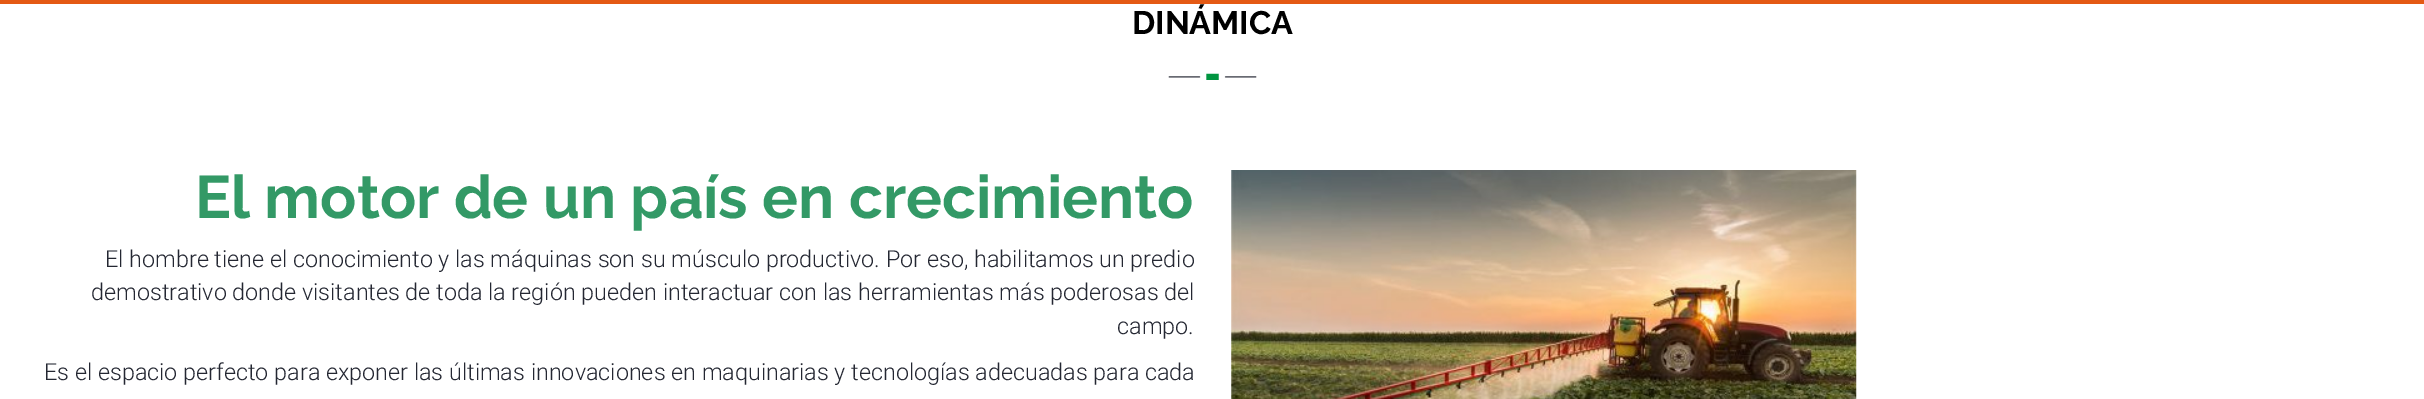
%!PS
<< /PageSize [2424 399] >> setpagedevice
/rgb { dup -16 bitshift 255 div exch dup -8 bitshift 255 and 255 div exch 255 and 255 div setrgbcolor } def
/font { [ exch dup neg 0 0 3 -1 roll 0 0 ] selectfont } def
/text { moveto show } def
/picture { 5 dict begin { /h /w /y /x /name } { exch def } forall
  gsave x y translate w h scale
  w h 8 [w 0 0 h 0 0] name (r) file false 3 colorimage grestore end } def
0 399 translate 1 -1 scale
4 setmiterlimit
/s1 { /Raleway-Bold 32.5 font 16#000000 rgb } def
/s2 { /Raleway-Bold 60 font 16#339966 rgb } def
/s3 { /Roboto-Light 23.35 font 16#242732 rgb } def
16#FFFFFF rgb
0 0 2424 399 rectfill
16#E45914 rgb
0 0 2424 4 rectfill
s1
(DINÁMICA) 1132 34 text
(pic1.raw) 1168 73 89 7 picture
s2
(El motor de un país en crecimiento) 195 218 text
s3
(El hombre tiene el conocimiento y las máquinas son su músculo productivo. Por eso, habilitamos un predio) 105 267 text
(demostrativo donde visitantes de toda la región pueden interactuar con las herramientas más poderosas del) 91 300 text
(campo.) 1117 334 text
(Es el espacio perfecto para exponer las últimas innovaciones en maquinarias y tecnologías adecuadas para cada) 44 380 text
(pic2.raw) 1231 170 626 229 picture
showpage
